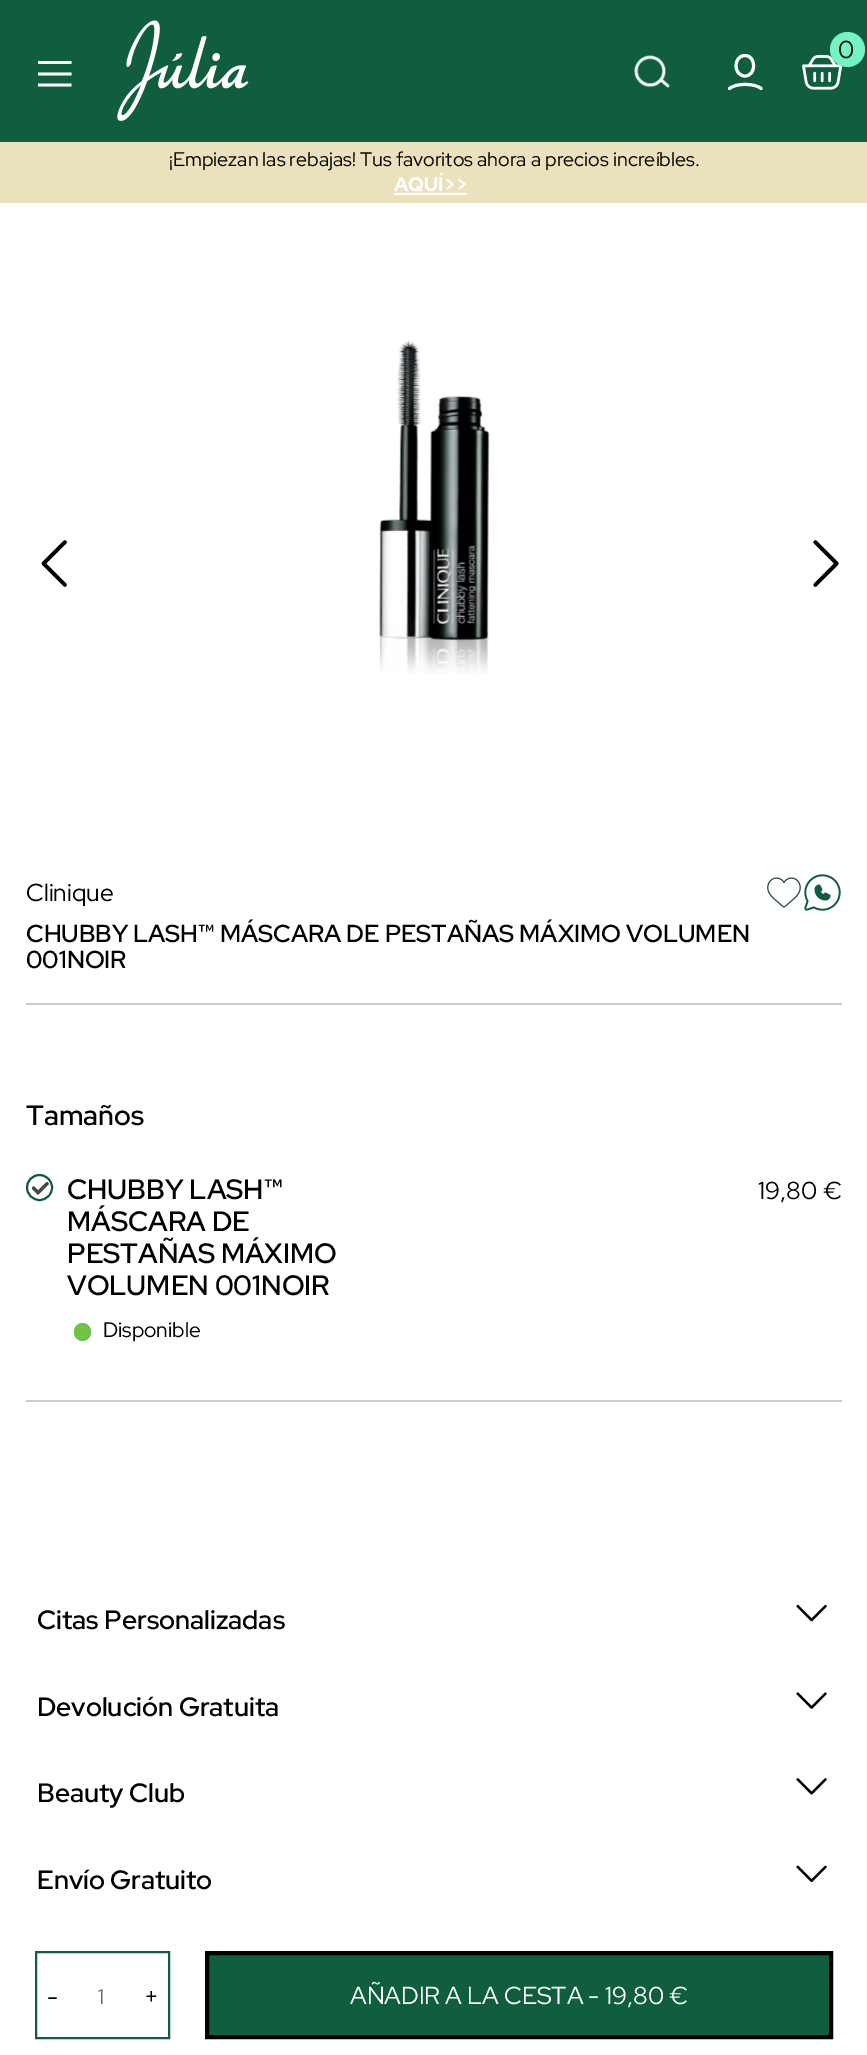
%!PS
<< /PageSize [867 2055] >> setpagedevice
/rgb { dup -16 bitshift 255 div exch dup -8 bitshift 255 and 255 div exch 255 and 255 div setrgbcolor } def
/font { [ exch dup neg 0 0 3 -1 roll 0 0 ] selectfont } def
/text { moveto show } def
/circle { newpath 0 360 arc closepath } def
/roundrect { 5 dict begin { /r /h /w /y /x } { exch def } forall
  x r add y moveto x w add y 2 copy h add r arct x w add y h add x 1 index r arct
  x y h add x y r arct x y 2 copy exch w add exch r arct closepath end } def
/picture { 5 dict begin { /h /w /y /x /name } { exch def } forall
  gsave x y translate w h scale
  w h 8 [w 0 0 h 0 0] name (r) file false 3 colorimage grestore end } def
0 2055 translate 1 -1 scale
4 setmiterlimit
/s1 { /RedHatDisplay-Regular 24.5 font 16#000000 rgb } def
/s2 { /RedHatDisplay-Regular 19.6 font 16#000000 rgb } def
/s3 { /RedHatDisplay-Bold 19.6 font 16#FFFFFF rgb } def
/s4 { /RedHatDisplay-Medium 24.5 font 16#000000 rgb } def
/s5 { /RedHatDisplay-Medium 28 font 16#000000 rgb } def
/s6 { /RedHatDisplay-SemiBold 28 font 16#000000 rgb } def
/s7 { /RedHatDisplay-Regular 21 font 16#000000 rgb } def
/s8 { /RedHatDisplay-Regular 21 font 16#6D6D6D rgb } def
/s9 { /RedHatDisplay-Regular 24.5 font 16#FFFFFF rgb } def
/s10 { /RedHatDisplay-Medium 26.5 font 16#000000 rgb } def
16#FFFFFF rgb
0 0 867 2055 rectfill
16#105D40 rgb
0 0 867 142 rectfill
(pic1.raw) 117 20 132 101 picture
(pic2.raw) 802 55 41 35 picture
16#76F3C4 rgb
847.5 49.5 17.5 circle fill
s1
(0) 838 58 text
(pic3.raw) 634 55 36 34 picture
16#FFFFFF rgb
3 setlinewidth
1 setlinecap
761 88.5 moveto 754.5 83 736 83 729.5 88.5 curveto 745 55.5 moveto 733 55.5 733 76 745 76 curveto 756.5 76 756.5 55.5 745 55.5 curveto closepath stroke
16#FEFEFE rgb
2.8 setlinewidth
0 setlinecap
38 85 moveto 71.5 85 lineto 38 74 moveto 71.5 74 lineto 38 62.5 moveto 71.5 62.5 lineto stroke
16#E9E2BC rgb
0 142 867 61 rectfill
s2
(¡Empiezan las rebajas! Tus favoritos ahora a precios increíbles.) 169 166 text
s3
(AQUÍ>>) 394 191 text
394 193 73 2 rectfill
(pic4.raw) 379 340 111 334 picture
(pic5.raw) 41 540 27 47 picture
(pic6.raw) 813 540 26 47 picture
s1
(Clinique) 26 901 text
(pic7.raw) 767 877 34 31 picture
(pic8.raw) 804 874 37 37 picture
16#CCCCCC rgb
26 1003 816 2 rectfill
s4
(CHUBBY LASH™ MÁSCARA DE PESTAÑAS MÁXIMO VOLUMEN) 26 942 text
(001NOIR) 26 968 text
16#CCCCCC rgb
26 1400 816 2 rectfill
s5
(Tamaños) 26 1125 text
16#105D40 rgb
2 setlinewidth
39.5 1187.5 12.5 circle stroke
(pic9.raw) 32 1181 17 14 picture
s6
(CHUBBY LASH™) 67 1199 text
(MÁSCARA DE) 67 1231 text
(PESTAÑAS MÁXIMO) 67 1263 text
(VOLUMEN 001NOIR) 67 1295 text
16#70C144 rgb
74 1323 17 18 8.5 roundrect fill
s7
(Disponible) 103 1337 text
s1
(19,80 €) 758 1199 text
16#105D40 rgb
36 1952 133 86 rectstroke
s1
(-) 47 2005 text
s8
(1) 98 2004 text
s1
(+) 144 2005 text
16#105D40 rgb
207 1953 moveto 831 1953 lineto 831 2037 lineto 207 2037 lineto closepath gsave fill grestore
16#000000 rgb
4 setlinewidth
stroke
s9
(AÑADIR A LA CESTA - 19,80 €) 350 2004 text
s10
(Citas Personalizadas) 37 1629 text
(pic10.raw) 796 1604 31 18 picture
(Devolución Gratuita) 37 1716 text
(pic11.raw) 796 1692 31 17 picture
(Beauty Club) 37 1802 text
(pic12.raw) 796 1778 31 17 picture
(Envío Gratuito) 37 1889 text
(pic13.raw) 796 1865 31 18 picture
showpage
